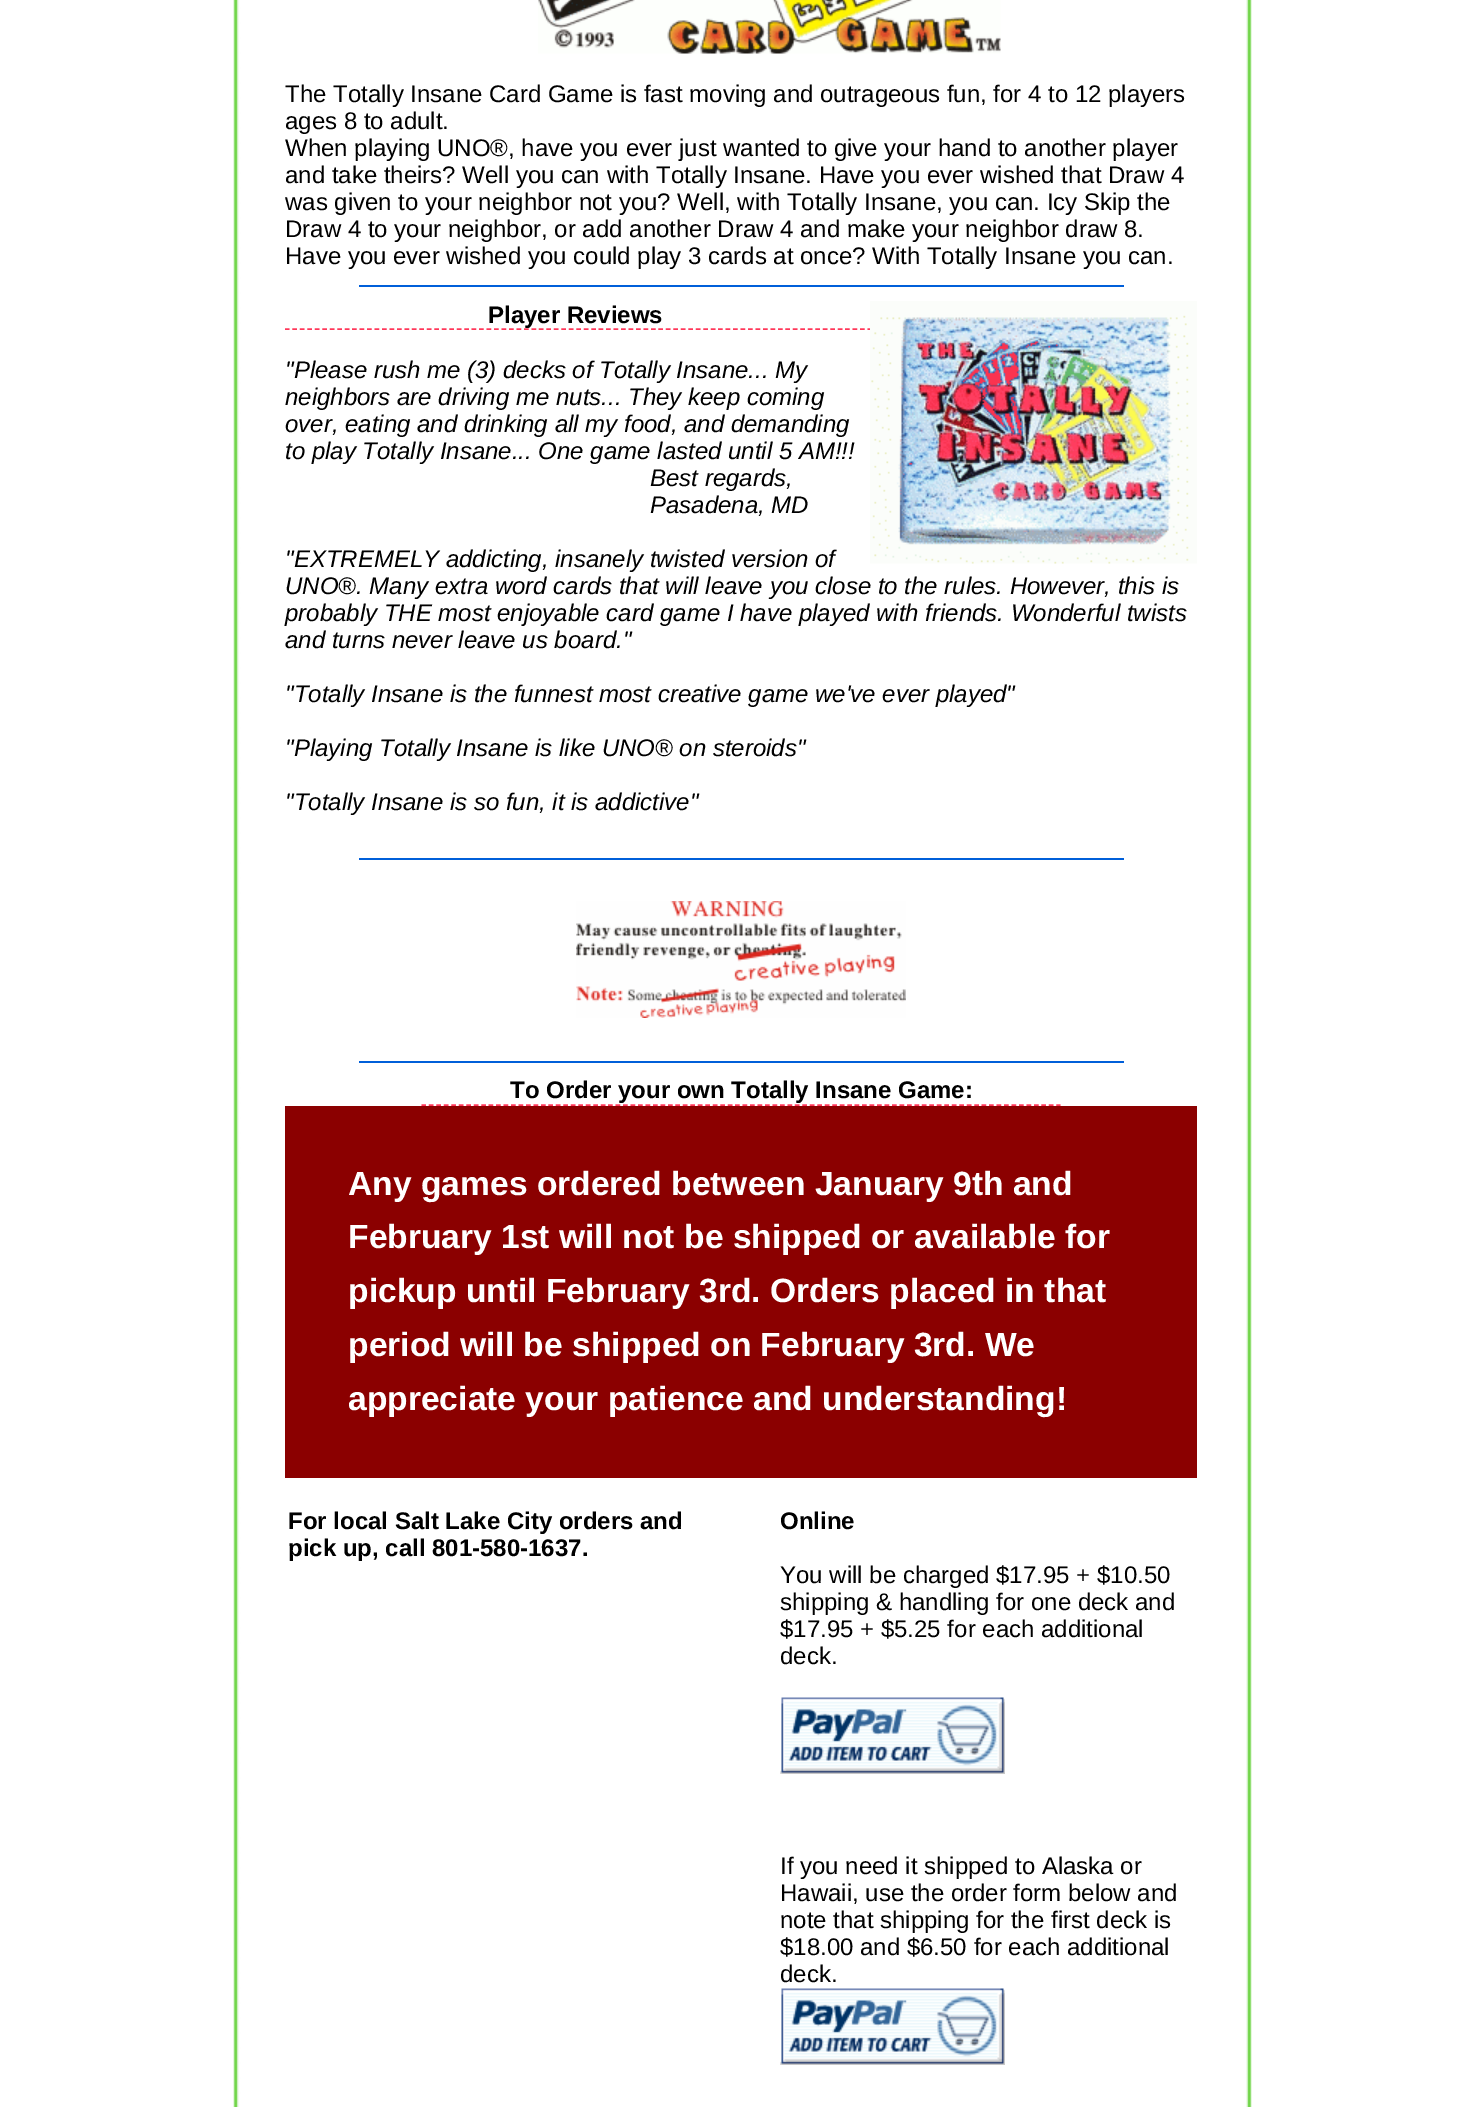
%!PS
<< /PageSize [1481 2107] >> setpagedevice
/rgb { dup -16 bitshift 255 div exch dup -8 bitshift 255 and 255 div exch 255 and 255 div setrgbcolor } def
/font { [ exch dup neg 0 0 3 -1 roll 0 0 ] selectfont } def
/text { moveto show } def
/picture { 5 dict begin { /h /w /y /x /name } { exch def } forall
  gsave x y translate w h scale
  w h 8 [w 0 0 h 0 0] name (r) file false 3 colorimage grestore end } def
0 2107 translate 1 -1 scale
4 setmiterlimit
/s1 { /LiberationSans-Regular 24 font 16#000000 rgb } def
/s2 { /LiberationSans-Bold 24 font 16#000000 rgb } def
/s3 { /LiberationSans-Italic 24 font 16#000000 rgb } def
/s4 { /LiberationSans-Bold 33.6 font 16#FFFFFF rgb } def
16#FFFFFF rgb
0 0 1481 2107 rectfill
(pic1.raw) 233 0 1019 2107 picture
(pic2.raw) 538 0 463 54 picture
s1
(The Totally Insane Card Game is fast moving and outrageous fun, for 4 to 12 players) 285 102 text
(ages 8 to adult.) 285 129 text
(When playing UNO®, have you ever just wanted to give your hand to another player) 285 156 text
(and take theirs? Well you can with Totally Insane. Have you ever wished that Draw 4) 285 183 text
(was given to your neighbor not you? Well, with Totally Insane, you can. Icy Skip the) 285 210 text
(Draw 4 to your neighbor, or add another Draw 4 and make your neighbor draw 8.) 285 237 text
(Have you ever wished you could play 3 cards at once? With Totally Insane you can.) 285 264 text
16#005FD9 rgb
359 285 765 2 rectfill
16#FF3759 rgb
1.5 setlinewidth
[4.5 2.97] 0 setdash
285 329 moveto 924 329 lineto stroke
s2
(Player Reviews) 488 323 text
(pic3.raw) 870 301 327 263 picture
s3
("Please rush me \(3\) decks of Totally Insane... My) 285 378 text
(neighbors are driving me nuts... They keep coming) 285 405 text
(over, eating and drinking all my food, and demanding) 285 432 text
(to play Totally Insane... One game lasted until 5 AM!!!) 285 459 text
(Best regards,) 650 486 text
(Pasadena, MD) 650 513 text
("EXTREMELY addicting, insanely twisted version of) 285 567 text
(UNO®. Many extra word cards that will leave you close to the rules. However, this is) 285 594 text
(probably THE most enjoyable card game I have played with friends. Wonderful twists) 285 621 text
(and turns never leave us board.") 285 648 text
("Totally Insane is the funnest most creative game we've ever played") 285 702 text
("Playing Totally Insane is like UNO® on steroids") 285 756 text
("Totally Insane is so fun, it is addictive") 285 810 text
16#005FD9 rgb
359 858 765 2 rectfill
(pic4.raw) 576 901 330 117 picture
359 1061 765 2 rectfill
16#FF3759 rgb
421.5 1105 moveto 1060.5 1105 lineto stroke
s2
(To Order your own Totally Insane Game:) 510 1098 text
16#8B0000 rgb
285 1106 912 372 rectfill
s4
(Any games ordered between January 9th and) 348 1195 text
(February 1st will not be shipped or available for) 348 1248 text
(pickup until February 3rd. Orders placed in that) 348 1302 text
(period will be shipped on February 3rd. We) 348 1356 text
(appreciate your patience and understanding!) 348 1410 text
s2
(For local Salt Lake City orders and) 288 1529 text
(pick up, call 801-580-1637.) 288 1556 text
(Online) 780 1529 text
s1
(You will be charged $17.95 + $10.50) 780 1583 text
(shipping & handling for one deck and) 780 1610 text
($17.95 + $5.25 for each additional) 780 1637 text
(deck.) 780 1664 text
(pic5.raw) 780 1697 225 77 picture
(If you need it shipped to Alaska or) 780 1874 text
(Hawaii, use the order form below and) 780 1901 text
(note that shipping for the first deck is) 780 1928 text
($18.00 and $6.50 for each additional) 780 1955 text
(deck.) 780 1982 text
(pic5.raw) 780 1988 225 77 picture
showpage
